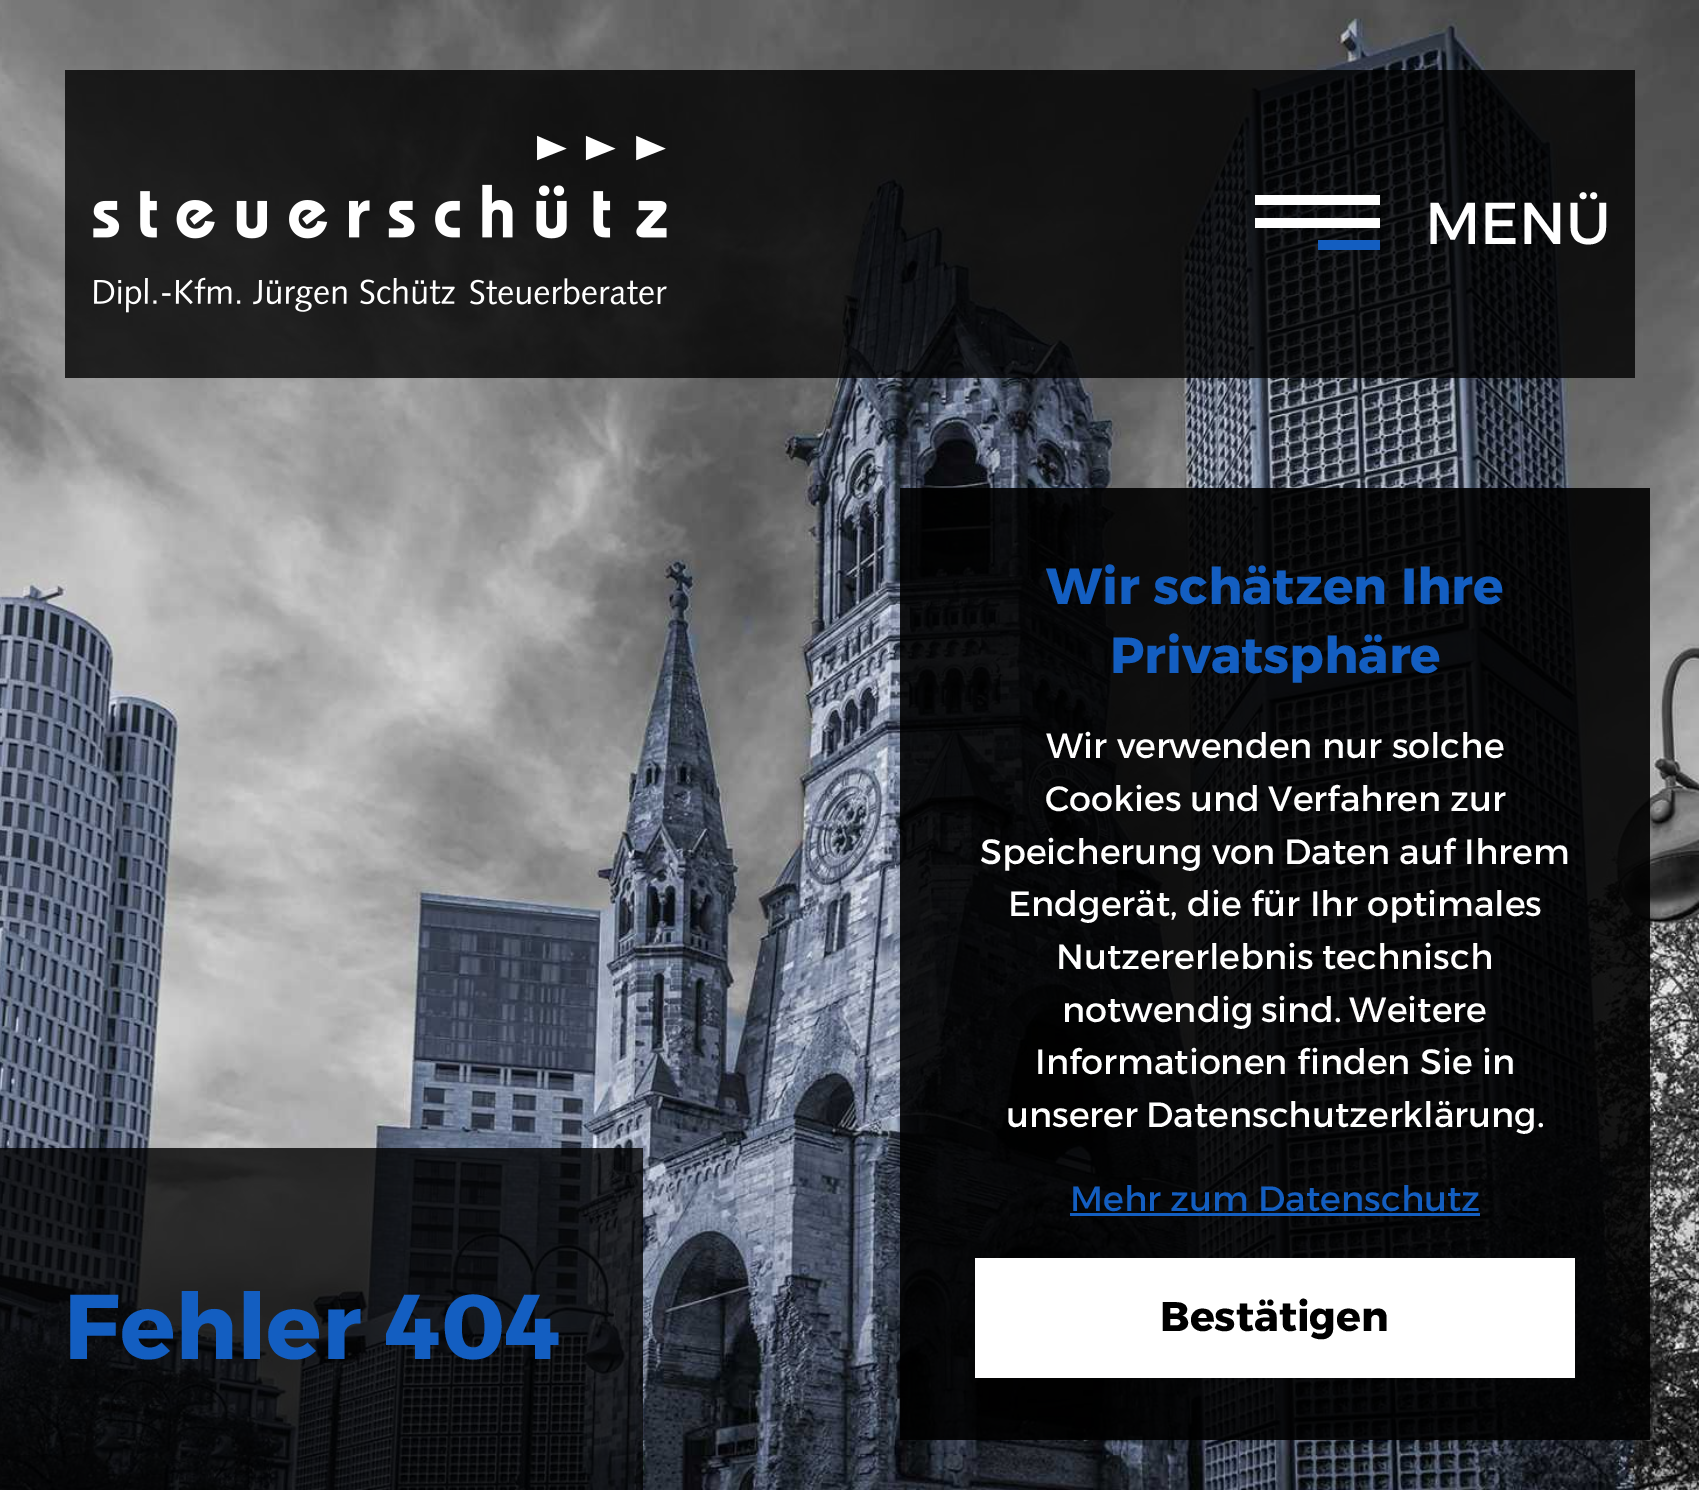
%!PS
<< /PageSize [1699 1490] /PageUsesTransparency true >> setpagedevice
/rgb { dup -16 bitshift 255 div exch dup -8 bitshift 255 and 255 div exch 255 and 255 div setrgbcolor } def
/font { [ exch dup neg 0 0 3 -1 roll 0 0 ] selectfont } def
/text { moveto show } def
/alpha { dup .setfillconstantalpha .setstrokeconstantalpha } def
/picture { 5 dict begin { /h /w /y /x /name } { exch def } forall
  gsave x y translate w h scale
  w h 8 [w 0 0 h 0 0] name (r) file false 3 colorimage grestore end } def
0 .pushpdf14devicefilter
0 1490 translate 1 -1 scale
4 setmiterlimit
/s1 { /Alexandria-Regular 59 font 16#FFFFFF rgb } def
/s2 { /Alexandria-Bold 91.5 font 16#135EC1 rgb } def
/s3 { /Alexandria-Bold 50.5 font 16#135EC1 rgb } def
/s4 { /Alexandria-Regular 35.1 font 16#FFFFFF rgb } def
/s5 { /Alexandria-Regular 35.1 font 16#135EC1 rgb } def
/s6 { /Alexandria-Bold 41.25 font 16#000000 rgb } def
16#FFFFFF rgb
0 0 1699 1490 rectfill
(pic2.raw) 0 0 1699 1490 picture
0.8 alpha
16#000000 rgb
65 70 1570 308 rectfill
1 alpha
(pic1.raw) 93 135 574 178 picture
16#FFFFFF rgb
1255 195 125 10 rectfill
1255 218 125 10 rectfill
16#135EC1 rgb
1318 240 62 10 rectfill
s1
(MENÜ) 1425 244 text
0.8 alpha
16#000000 rgb
65 1148 578 342 rectfill
0 1148 65 342 rectfill
1 alpha
s2
(Fehler 404) 64 1359 text
0.9 alpha
16#000000 rgb
900 488 750 952 rectfill
1 alpha
s3
(Wir schätzen Ihre) 1046 604 text
(Privatsphäre) 1110 673 text
s4
(Wir verwenden nur solche) 1046 758 text
1045 811 moveto -1 0 32 (Cookies und Verfahren zur) widthshow
980 864 moveto -0.5 0 32 (Speicherung von Daten auf Ihrem) widthshow
(Endgerät, die für Ihr optimales) 1008 916 text
1056 969 moveto -1 0 32 (Nutzererlebnis technisch) widthshow
1062 1022 moveto -2 0 32 (notwendig sind. Weitere) widthshow
(Informationen finden Sie in) 1035 1074 text
1006 1127 moveto -1 0 32 (unserer Datenschutzerklärung.) widthshow
s5
(Mehr zum Datenschutz) 1070 1211 text
1070 1213 410 3 rectfill
16#FFFFFF rgb
975 1258 600 120 rectfill
s6
(Bestätigen) 1160 1331 text
.poppdf14devicefilter showpage
